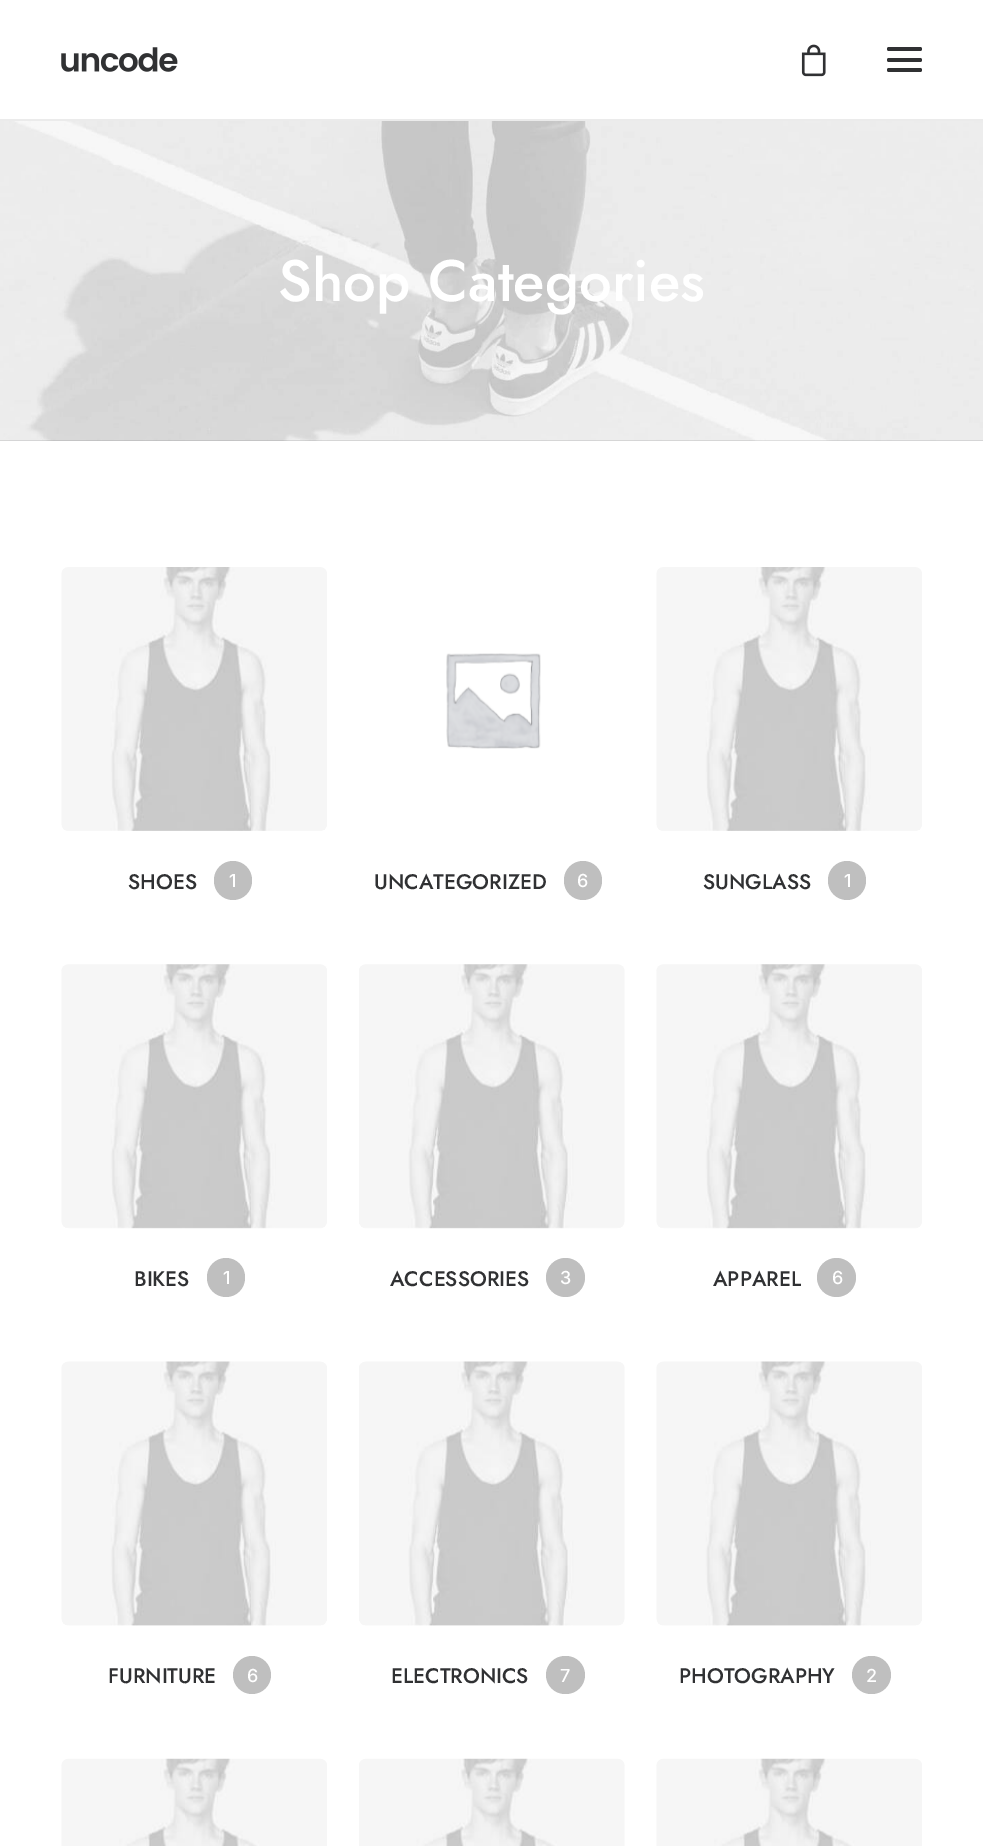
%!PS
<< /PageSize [983 1846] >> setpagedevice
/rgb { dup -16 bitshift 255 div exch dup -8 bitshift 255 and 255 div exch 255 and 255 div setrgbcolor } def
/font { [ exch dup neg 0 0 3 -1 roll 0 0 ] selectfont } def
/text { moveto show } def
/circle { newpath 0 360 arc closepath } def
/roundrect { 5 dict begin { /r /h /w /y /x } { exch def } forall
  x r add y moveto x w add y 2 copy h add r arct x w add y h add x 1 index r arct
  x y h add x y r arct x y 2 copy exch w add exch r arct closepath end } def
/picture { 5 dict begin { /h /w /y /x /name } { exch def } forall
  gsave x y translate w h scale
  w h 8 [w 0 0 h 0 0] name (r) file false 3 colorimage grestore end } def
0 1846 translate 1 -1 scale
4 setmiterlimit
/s1 { /Jost-Medium 58.25 font 16#FFFFFF rgb } def
/s2 { /Jost-Medium 21 font 16#303133 rgb } def
/s3 { /Inter-Medium 18 font 16#FFFFFF rgb } def
16#FFFFFF rgb
0 0 983 1846 rectfill
16#EBEBEB rgb
0 119 983 2 rectfill
(pic1.raw) 61 47 117 25 picture
(pic2.raw) 801 44 25 33 picture
16#303133 rgb
887 58 35 4 2 roundrect fill
887 47 35 4 2 roundrect fill
887 68 35 4 2 roundrect fill
(pic3.raw) 0 121 983 320 picture
s1
(Shop Categories) 278 301 text
(pic4.raw) 61 567 266 264 picture
s2
(SHOES) 128 889 text
16#BFBFBF rgb
214 861 38 39 19 roundrect fill
s3
(1) 229 887 text
(pic5.raw) 446 653 95 96 picture
s2
(UNCATEGORIZED) 374 889 text
16#BFBFBF rgb
564 861 38 39 19 roundrect fill
s3
(6) 577 887 text
(pic4.raw) 656 567 266 264 picture
s2
(SUNGLASS) 703 889 text
16#BFBFBF rgb
828 861 38 39 19 roundrect fill
s3
(1) 844 887 text
(pic6.raw) 61 964 266 265 picture
s2
(BIKES) 134 1286 text
16#BFBFBF rgb
207 1258 38 39 19 roundrect fill
s3
(1) 223 1284 text
(pic7.raw) 359 964 266 265 picture
s2
(ACCESSORIES) 390 1286 text
16#BFBFBF rgb
565.5 1277.5 19.5 circle fill
s3
(3) 560 1284 text
(pic6.raw) 656 964 266 265 picture
s2
(APPAREL) 713 1286 text
16#BFBFBF rgb
836.5 1277.5 19.5 circle fill
s3
(6) 832 1284 text
(pic8.raw) 61 1361 266 265 picture
s2
(FURNITURE) 108 1683 text
16#BFBFBF rgb
252 1675 19 circle fill
s3
(6) 247 1682 text
(pic9.raw) 359 1361 266 265 picture
s2
(ELECTRONICS) 391 1683 text
16#BFBFBF rgb
546 1656 39 38 19 roundrect fill
s3
(7) 560 1682 text
(pic8.raw) 656 1361 266 265 picture
s2
(PHOTOGRAPHY) 679 1683 text
16#BFBFBF rgb
852 1656 39 38 19 roundrect fill
s3
(2) 866 1682 text
(pic10.raw) 61 1758 266 88 picture
(pic11.raw) 359 1758 266 88 picture
(pic10.raw) 656 1758 266 88 picture
showpage
